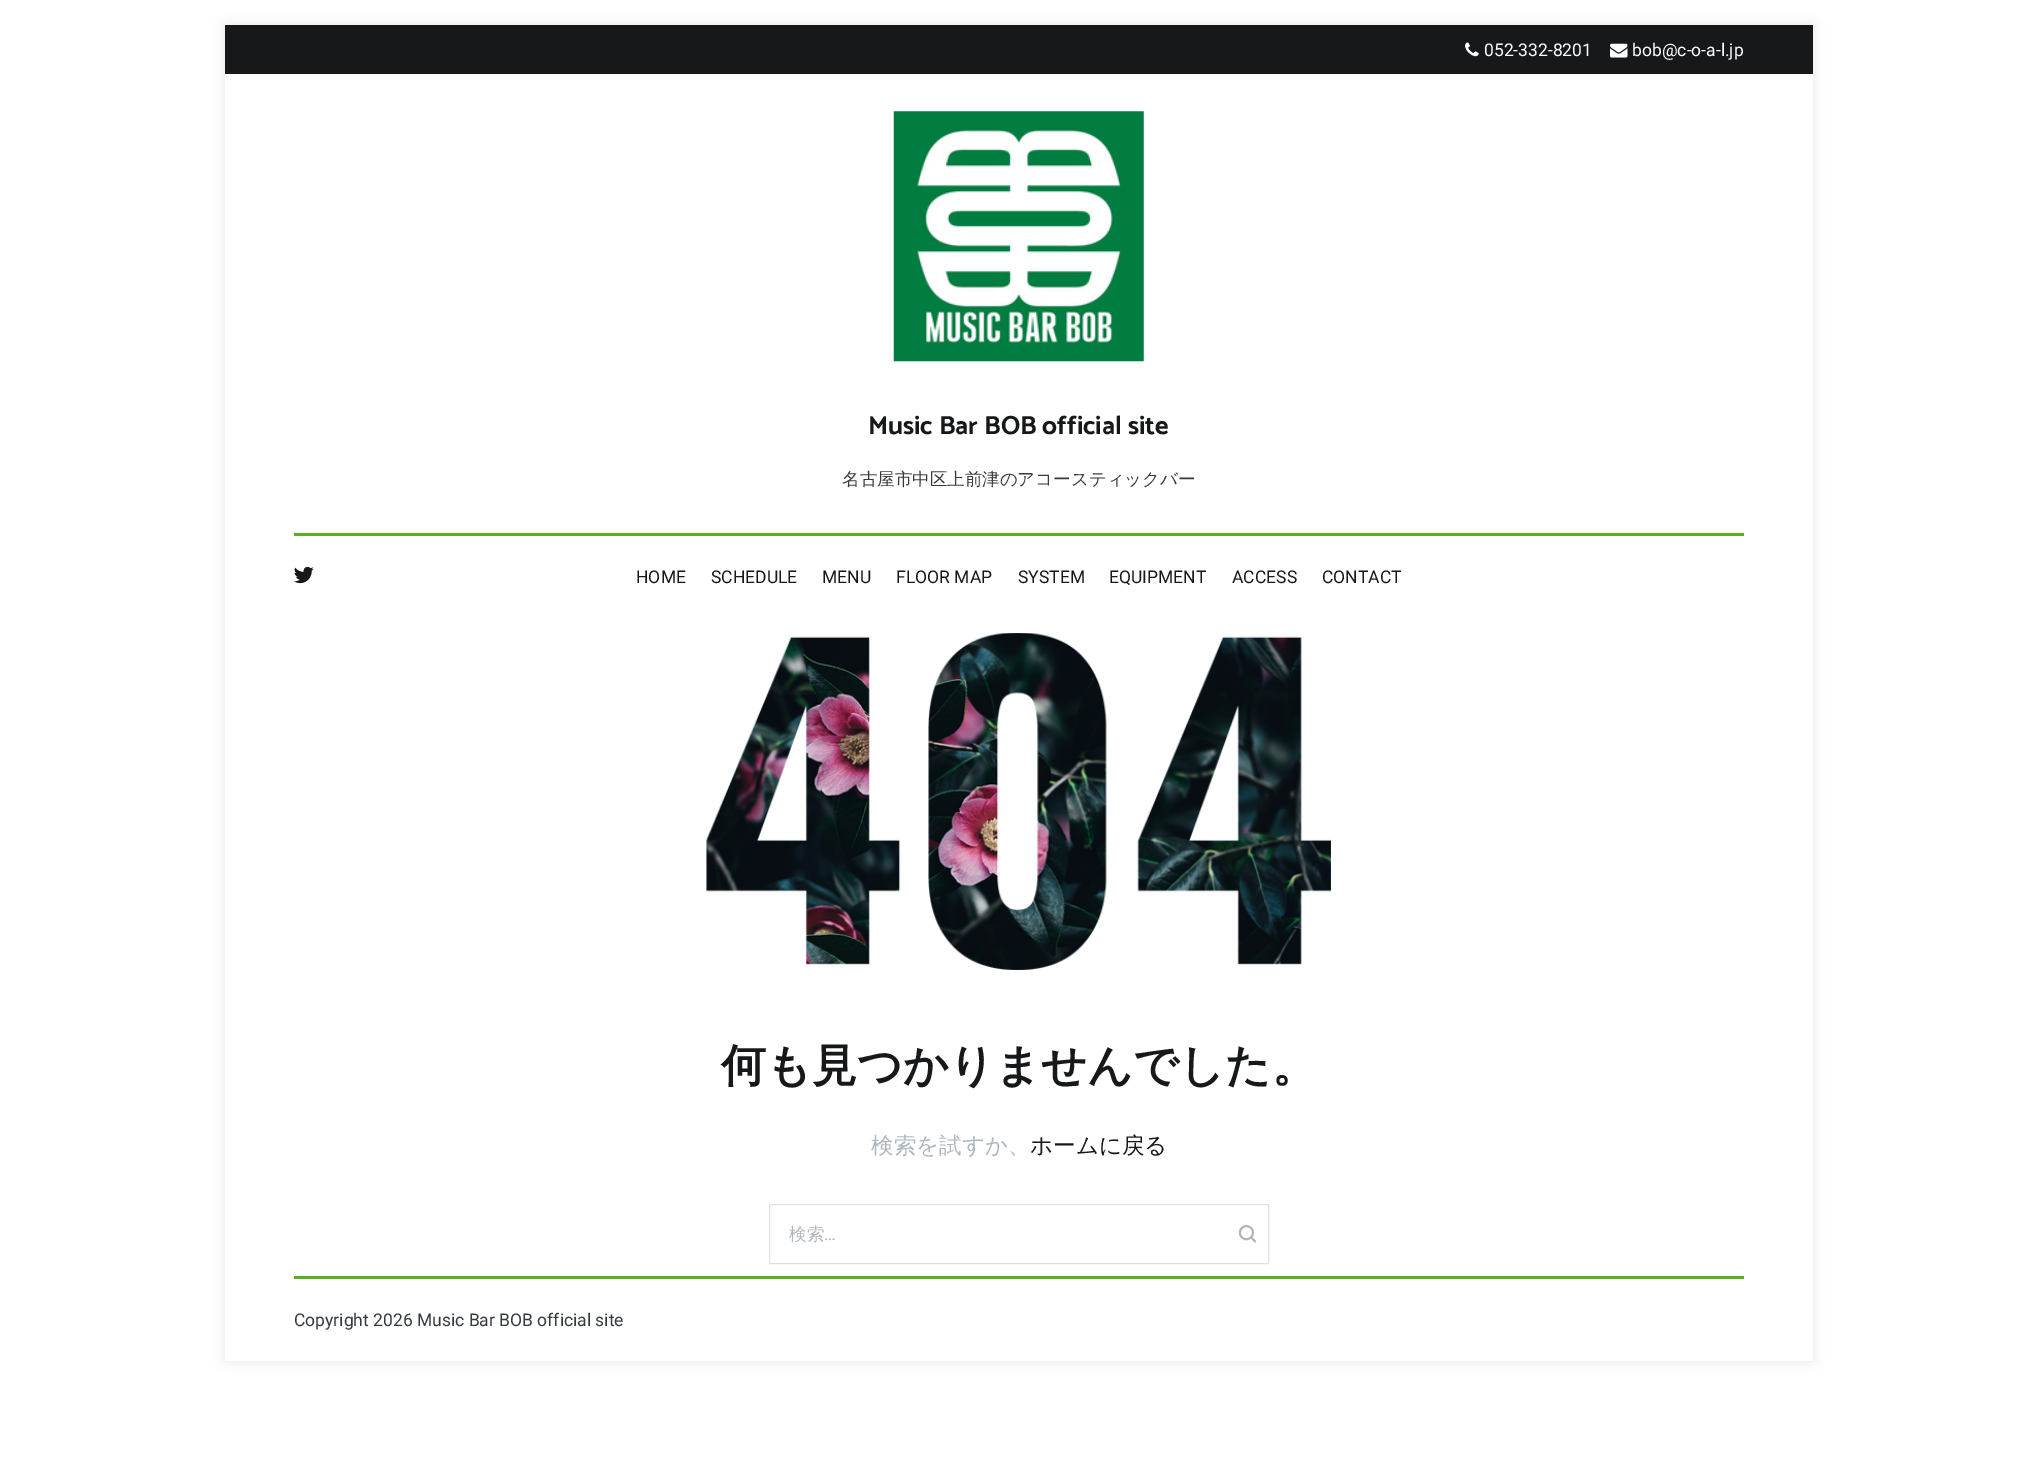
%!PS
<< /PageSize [2037 1462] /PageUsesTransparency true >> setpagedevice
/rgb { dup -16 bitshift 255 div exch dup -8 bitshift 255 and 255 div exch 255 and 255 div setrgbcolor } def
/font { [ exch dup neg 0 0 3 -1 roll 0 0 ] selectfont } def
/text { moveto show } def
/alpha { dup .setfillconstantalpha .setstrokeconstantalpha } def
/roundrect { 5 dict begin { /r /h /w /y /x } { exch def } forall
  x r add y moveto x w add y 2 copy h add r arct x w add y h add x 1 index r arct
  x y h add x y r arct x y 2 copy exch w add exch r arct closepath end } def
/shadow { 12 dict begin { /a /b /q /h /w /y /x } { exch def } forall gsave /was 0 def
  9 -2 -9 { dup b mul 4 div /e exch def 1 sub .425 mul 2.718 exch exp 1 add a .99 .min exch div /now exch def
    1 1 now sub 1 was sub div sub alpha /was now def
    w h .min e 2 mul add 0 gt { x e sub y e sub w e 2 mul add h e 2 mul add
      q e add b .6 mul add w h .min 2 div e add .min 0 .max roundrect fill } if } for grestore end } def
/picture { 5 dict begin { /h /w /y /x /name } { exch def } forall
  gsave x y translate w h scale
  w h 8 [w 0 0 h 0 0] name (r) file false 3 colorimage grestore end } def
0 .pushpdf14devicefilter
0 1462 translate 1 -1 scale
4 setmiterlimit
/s1 { /Roboto-Regular 17.5 font 16#FFFFFF rgb } def
/s2 { /Catamaran-Thin 26.25 font 16#16181A rgb } def
/s3 { /WenQuanYiZenHei-Medium 17.5 font 16#363B40 rgb } def
/s4 { /Roboto-Regular 17.5 font 16#16181A rgb } def
/s5 { /WenQuanYiZenHei-Bold 45 font 16#16181A rgb } def
/s6 { /WenQuanYiZenHei-Medium 22.5 font 16#ADB5BD rgb } def
/s7 { /WenQuanYiZenHei-Medium 22.5 font 16#16181A rgb } def
/s8 { /WenQuanYiZenHei-Medium 17.5 font 16#ADB5BD rgb } def
/s9 { /Roboto-Regular 17.5 font 16#ADB5BD rgb } def
/s10 { /Roboto-Regular 17.5 font 16#363B40 rgb } def
16#FFFFFF rgb
0 0 2037 1462 rectfill
gsave
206 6 moveto 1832 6 lineto 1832 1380 lineto 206 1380 lineto closepath 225 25 moveto 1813 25 lineto 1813 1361 lineto 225 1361 lineto closepath eoclip newpath
16#000000 rgb
225 25 1588 1336 0 6 0.1 shadow
grestore
0.6 alpha
1812 74 1 1285 rectfill
1 alpha
16#16181A rgb
225 25 1588 49 rectfill
(pic1.raw) 1465 42 14 15 picture
s1
(052-332-8201) 1484 56 text
(pic2.raw) 1610 43 18 15 picture
(bob@c-o-a-l.jp) 1632 56 text
(pic3.raw) 893 111 251 251 picture
s2
(Music Bar BOB official site) 868 434 text
s3
(名古屋市中区上前津のアコースティックバー) 842 485 text
16#5CB020 rgb
294 533 1450 3 rectfill
(pic4.raw) 293 566 21 18 picture
s4
(HOME) 636 583 text
(SCHEDULE) 711 583 text
(MENU) 822 583 text
(FLOOR MAP) 896 583 text
(SYSTEM) 1018 583 text
(EQUIPMENT) 1109 583 text
(ACCESS) 1232 583 text
(CONTACT) 1322 583 text
(pic5.raw) 706 633 625 337 picture
s5
(何も見つかりませんでした。) 721 1081 text
s6
(検索を試すか、) 871 1153 text
s7
(ホームに戻る) 1030 1153 text
16#DEE2E6 rgb
769.5 1204.5 499 59 rectstroke
s8
(検索) 789 1240 text
s9
(…) 824 1240 text
(pic6.raw) 1238 1225 19 18 picture
16#5CB020 rgb
294 1276 1450 3 rectfill
s10
(Copyright 2026 Music Bar BOB official site) 294 1326 text
.poppdf14devicefilter showpage
